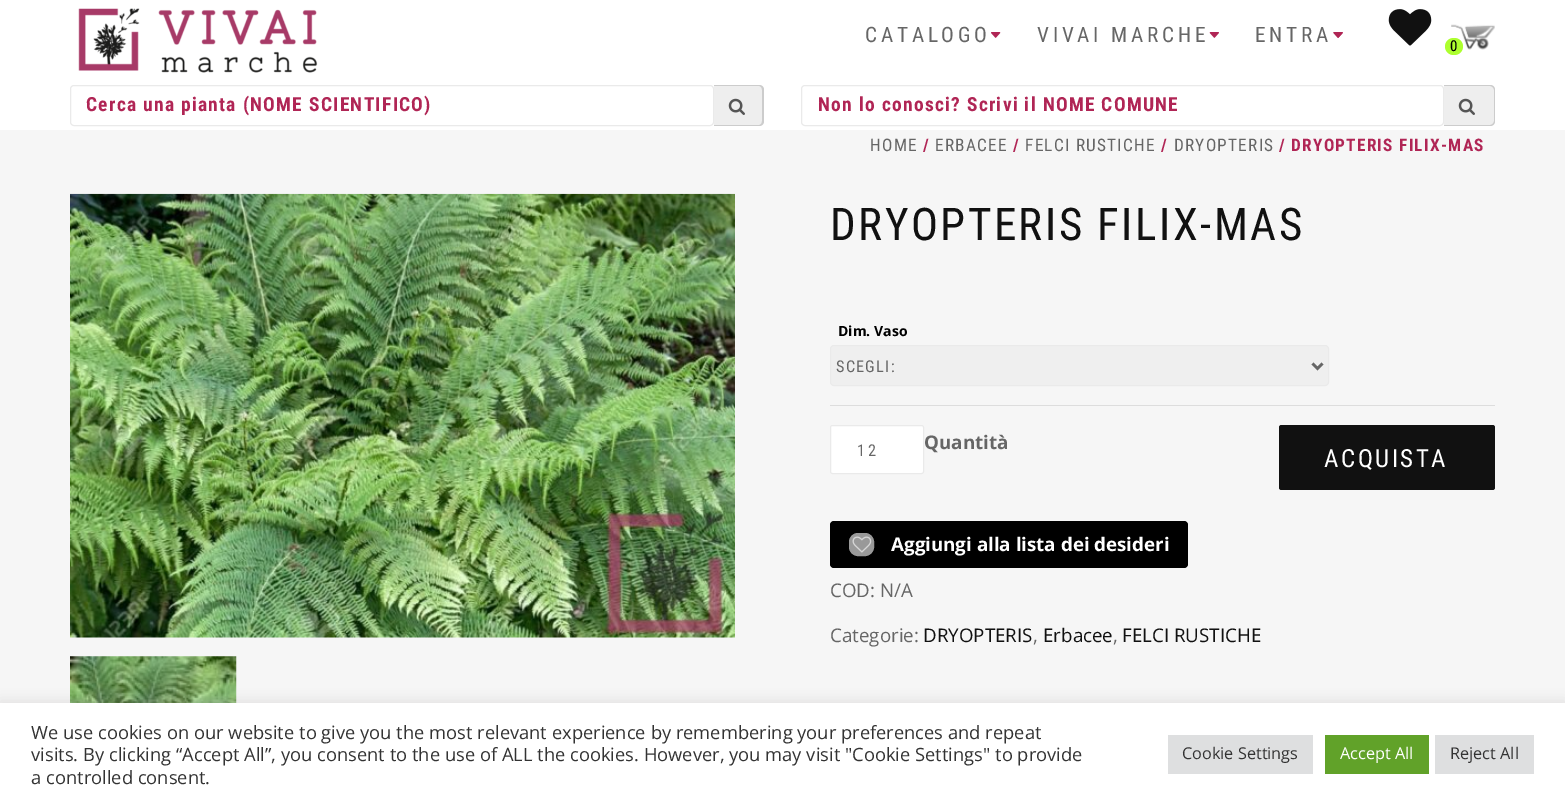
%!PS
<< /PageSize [1565 804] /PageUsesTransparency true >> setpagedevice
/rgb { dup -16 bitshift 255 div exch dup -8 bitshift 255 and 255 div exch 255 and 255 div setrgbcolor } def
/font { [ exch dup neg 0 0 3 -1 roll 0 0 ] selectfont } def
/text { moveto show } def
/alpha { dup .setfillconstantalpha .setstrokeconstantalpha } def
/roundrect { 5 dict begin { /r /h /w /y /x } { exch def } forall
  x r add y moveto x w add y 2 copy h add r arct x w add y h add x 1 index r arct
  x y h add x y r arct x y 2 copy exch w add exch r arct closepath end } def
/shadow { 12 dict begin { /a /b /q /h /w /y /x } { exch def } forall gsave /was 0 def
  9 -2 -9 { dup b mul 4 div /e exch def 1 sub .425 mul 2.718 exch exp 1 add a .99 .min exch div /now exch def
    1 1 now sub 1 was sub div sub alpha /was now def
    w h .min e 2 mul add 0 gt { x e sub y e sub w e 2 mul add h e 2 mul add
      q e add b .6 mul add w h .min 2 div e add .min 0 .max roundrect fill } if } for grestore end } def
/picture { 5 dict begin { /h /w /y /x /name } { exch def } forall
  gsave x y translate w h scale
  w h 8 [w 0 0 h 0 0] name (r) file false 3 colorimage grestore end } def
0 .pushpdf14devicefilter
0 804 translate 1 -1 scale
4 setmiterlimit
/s1 { /RobotoCondensed-Regular 15 font 16#000000 rgb } def
/s2 { /OpenSans-Bold 14 font 16#000000 rgb } def
/s3 { /OpenSans-Bold 18.75 font 16#666666 rgb } def
/s4 { /OpenSans-Bold 18.75 font 16#FFFFFF rgb } def
/s5 { /OpenSans-Regular 18.75 font 16#666666 rgb } def
/s6 { /OpenSans-Regular 18.75 font 16#111111 rgb } def
/s7 { /OpenSans-Regular 18.33 font 16#333333 rgb } def
/s8 { /OpenSans-Regular 16.25 font 16#333333 rgb } def
/s9 { /OpenSans-Regular 16.25 font 16#FFFFFF rgb } def
16#F6F6F6 rgb
0 0 1565 804 rectfill
16#FFFFFF rgb
0 0 1565 130 rectfill
(pic1.raw) 78 8 240 65 picture
/RobotoCondensed-Regular 21.25 font
16#666666 rgb
865 42 moveto 3.75 0 (CATALOGO) ashow
(pic2.raw) 991 32 10 6 picture
1037 42 moveto 3.75 0 (VIVAI MARCHE) ashow
(pic3.raw) 1209 32 10 6 picture
1255 42 moveto 3.75 0 (ENTRA) ashow
(pic4.raw) 1333 32 10 6 picture
(pic5.raw) 1333 32 10 6 picture
(pic6.raw) 1388 9 44 37 picture
(pic7.raw) 1451 24 44 26 picture
16#ADFF2F rgb
1445 38 18 17 8.5 roundrect fill
s1
(0) 1450 51 text
16#EAEAEA rgb
70.5 85.5 643 40 3.5 roundrect stroke
/RobotoCondensed-Bold 19.5 font
16#B02555 rgb
86 111 moveto 1.25 0 (Cerca una pianta \(NOME SCIENTIFICO\)) ashow
16#EEEEEE rgb
714 85 moveto 759 85 lineto 762 85 764 87 764 90 curveto 764 121 lineto 764 124 762 126 759 126 curveto 714 126 lineto closepath fill
16#CCCCCC rgb
714 85 moveto 759 85 lineto 762 85 764 87 764 90 curveto 764 121 lineto 764 124 762 126 759 126 curveto 714 126 lineto closepath 714 86 moveto 759 86 lineto 761 86 762 88 762 90 curveto 762 121 lineto 762 123 761 125 759 125 curveto 714 125 lineto closepath eofill
(pic8.raw) 728 98 17 17 picture
16#EAEAEA rgb
801.5 85.5 642 40 3.5 roundrect stroke
16#B02555 rgb
818 111 moveto 1.25 0 (Non lo conosci? Scrivi il NOME COMUNE) ashow
16#EEEEEE rgb
1444 85 moveto 1490 85 lineto 1493 85 1495 87 1495 90 curveto 1495 121 lineto 1495 124 1493 126 1490 126 curveto 1444 126 lineto closepath fill
16#CCCCCC rgb
1444 85 moveto 1490 85 lineto 1493 85 1495 87 1495 90 curveto 1495 121 lineto 1495 124 1493 126 1490 126 curveto 1444 126 lineto closepath 1444 86 moveto 1490 86 lineto 1492 86 1494 88 1494 90 curveto 1494 121 lineto 1494 123 1492 125 1490 125 curveto 1444 125 lineto closepath eofill
(pic8.raw) 1458 98 17 17 picture
/RobotoCondensed-Regular 17.25 font
16#666666 rgb
870 151 moveto 1.25 0 (HOME) ashow
/RobotoCondensed-Bold 17.25 font
16#B02555 rgb
923 151 moveto 1.25 0 (/) ashow
/RobotoCondensed-Regular 17.25 font
16#666666 rgb
935 151 moveto 1.25 0 (ERBACEE) ashow
/RobotoCondensed-Bold 17.25 font
16#B02555 rgb
1013 151 moveto 1.25 0 (/) ashow
/RobotoCondensed-Regular 17.25 font
16#666666 rgb
1025 151 moveto 1.25 0 (FELCI RUSTICHE) ashow
/RobotoCondensed-Bold 17.25 font
16#B02555 rgb
1161 151 moveto 1.25 0 (/) ashow
/RobotoCondensed-Regular 17.25 font
16#666666 rgb
1174 151 moveto 1.25 0 (DRYOPTERIS) ashow
/RobotoCondensed-Bold 17.25 font
16#B02555 rgb
1279 151 moveto 1.25 0 (/ DRYOPTERIS FILIX-MAS) ashow
(pic9.raw) 70 193 665 445 picture
(pic10.raw) 70 656 167 47 picture
/RobotoCondensed-Regular 45 font
16#111111 rgb
830 240 moveto 2.5 0 (DRYOPTERIS FILIX-MAS) ashow
s2
(Dim. Vaso) 838 336 text
16#EFEFEF rgb
830.5 345.5 498 40 3.5 roundrect gsave fill grestore
16#EAEAEA rgb
stroke
16#666666 rgb
2.5 setlinewidth
1312.5 363.5 moveto 1317.5 368.5 lineto 1322.5 363.5 lineto stroke
/RobotoCondensed-Regular 16.25 font
836 372 moveto 1.25 0 (SCEGLI:) ashow
16#DDDDDD rgb
830 405 665 1 rectfill
16#FFFFFF rgb
830.5 425.5 93 48 2 roundrect gsave fill grestore
16#EAEAEA rgb
1 setlinewidth
stroke
16#666666 rgb
857 456 moveto 2.5 0 (12) ashow
s3
(Quantità) 924 449 text
16#111111 rgb
1279 425 216 65 2.5 roundrect fill
/RobotoCondensed-Regular 25 font
16#FFFFFF rgb
1324 467 moveto 2.5 0 (ACQUISTA) ashow
16#000000 rgb
830 521 358 47 4 roundrect fill
16#999999 rgb
849.5 533.5 24 22 8.5 roundrect gsave fill grestore
stroke
(pic11.raw) 852 536 20 17 picture
s4
(Aggiungi alla lista dei desideri) 891 551 text
s5
(COD: N/A) 830 597 text
(Categorie:) 830 642 text
s6
(DRYOPTERIS) 923 642 text
s5
(,) 1033 642 text
s6
(Erbacee) 1043 642 text
s5
(,) 1113 642 text
s6
(FELCI RUSTICHE) 1122 642 text
16#ACABAB rgb
0 701 1565 103 0 6 0.3 shadow
16#FFFFFF rgb
0 703 1565 101 rectfill
s7
(We use cookies on our website to give you the most relevant experience by remembering your preferences and repeat) 31 739 text
(visits. By clicking “Accept All”, you consent to the use of ALL the cookies. However, you may visit "Cookie Settings" to provide) 31 761 text
(a controlled consent.) 31 784 text
16#DEDFE0 rgb
1168 735 145 39 rectfill
s8
(Cookie Settings) 1182 759 text
16#61A229 rgb
1325 735 104 39 rectfill
s9
(Accept All) 1340 759 text
16#DEDFE0 rgb
1435 735 99 39 rectfill
s8
(Reject All) 1450 759 text
.poppdf14devicefilter showpage
